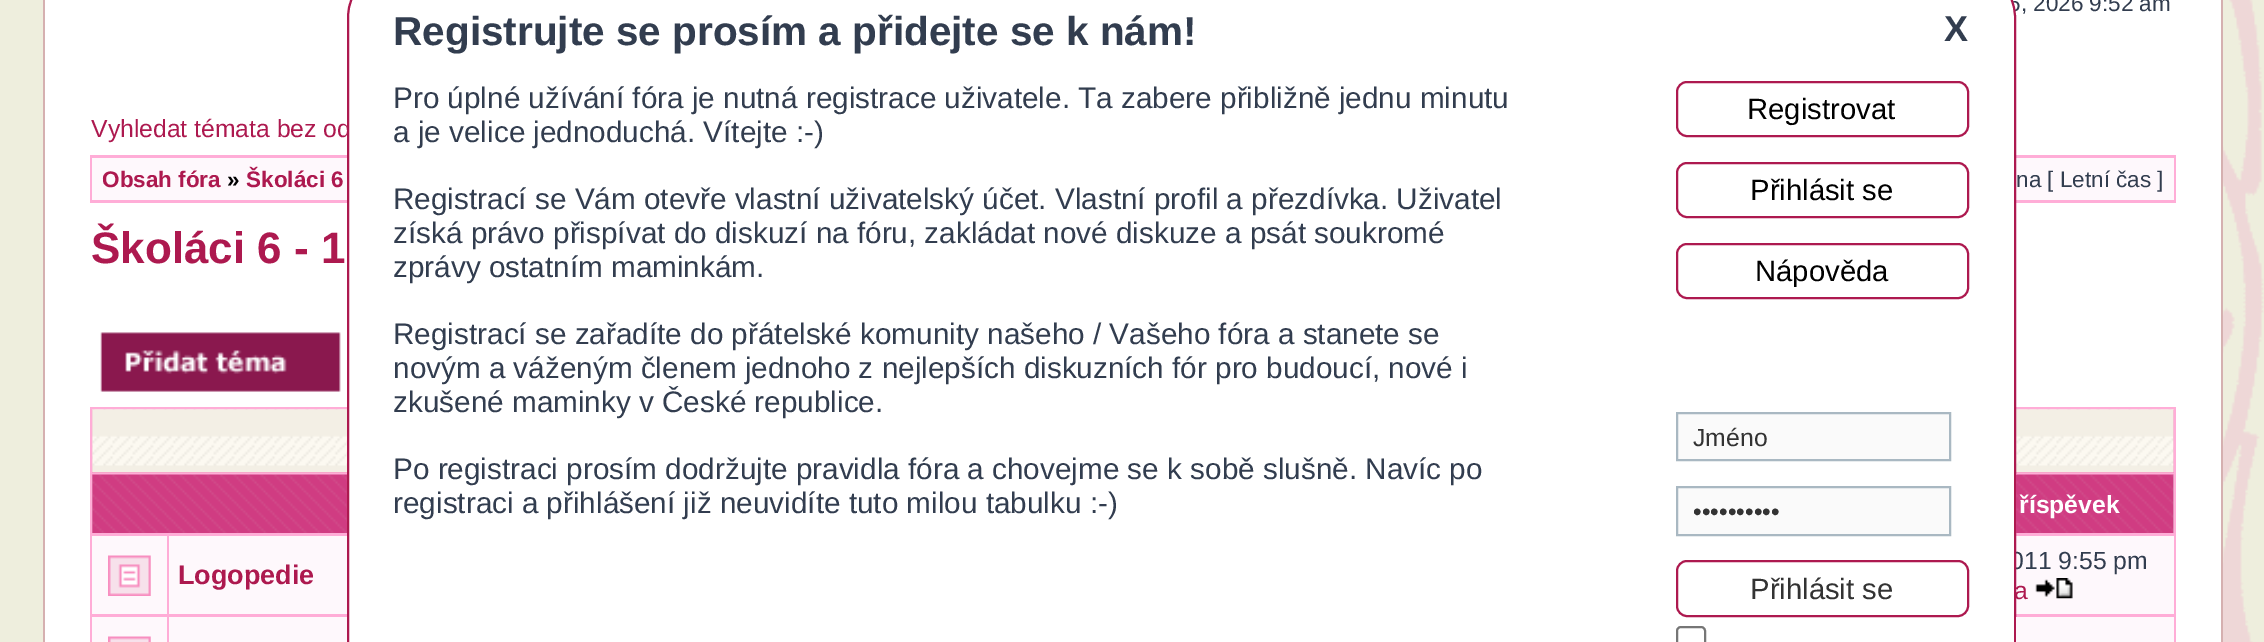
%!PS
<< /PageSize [2264 642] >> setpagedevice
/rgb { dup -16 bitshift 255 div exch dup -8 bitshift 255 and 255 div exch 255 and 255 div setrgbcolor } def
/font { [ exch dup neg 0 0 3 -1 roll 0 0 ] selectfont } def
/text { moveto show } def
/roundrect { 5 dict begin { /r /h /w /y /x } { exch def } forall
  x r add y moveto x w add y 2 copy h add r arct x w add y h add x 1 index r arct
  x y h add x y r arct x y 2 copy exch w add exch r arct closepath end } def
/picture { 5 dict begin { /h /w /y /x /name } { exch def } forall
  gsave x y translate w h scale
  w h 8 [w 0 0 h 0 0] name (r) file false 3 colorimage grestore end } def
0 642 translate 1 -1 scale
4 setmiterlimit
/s1 { /LiberationSans-Regular 22.5 font 16#323D4F rgb } def
/s2 { /LiberationSans-Regular 24.75 font 16#AD194F rgb } def
/s3 { /LiberationSans-Regular 24.75 font 16#323D4F rgb } def
/s4 { /LiberationSans-Bold 40.5 font 16#323D4F rgb } def
/s5 { /LiberationSans-Bold 36 font 16#323D4F rgb } def
/s6 { /LiberationSans-Regular 29.7 font 16#323D4F rgb } def
/s7 { /LiberationSans-Regular 29.25 font 16#000000 rgb } def
/s8 { /LiberationSans-Regular 24.75 font 16#333333 rgb } def
/s9 { /LiberationSans-Regular 29.25 font 16#333333 rgb } def
/s10 { /LiberationSans-Bold 22.5 font 16#AD194F rgb } def
/s11 { /LiberationSans-Bold 22.5 font 16#000000 rgb } def
/s12 { /LiberationSans-Bold 44 font 16#AD194F rgb } def
/s13 { /LiberationSans-Bold 24.75 font 16#FFFFFF rgb } def
/s14 { /LiberationSans-Bold 27 font 16#AD194F rgb } def
16#EEEEDD rgb
0 0 2264 642 rectfill
(pic1.raw) 2223 0 41 642 picture
16#FFFFFF rgb
45 0 2176 642 rectfill
16#D5B0B0 rgb
2221 0 2 642 rectfill
43 0 2 642 rectfill
s1
(6, 2026 9:52 am) 2008 11 text
s2
(Vyhledat témata bez od) 91 137 text
16#FFADD7 rgb
90 155 2086 48 rectfill
16#FEF8FC rgb
92 158 2082 42 rectfill
16#FFADD7 rgb
90 407 2086 235 rectfill
16#F88EC0 rgb
92 410 2082 63 rectfill
(pic3.raw) 92 409 2082 64 picture
16#FEF8FC rgb
2016 536 158 78 rectfill
s3
(011 9:55 pm) 2010 569 text
s2
(a) 2014 599 text
16#FFFFFF rgb
348 -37 1667 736 55 roundrect gsave fill grestore
16#AD194F rgb
2 setlinewidth
stroke
s4
(Registrujte se prosím a přidejte se k nám!) 393 45 text
s5
(X) 1944 41 text
s6
(Pro úplné užívání fóra je nutná registrace uživatele. Ta zabere přibližně jednu minutu) 393 108 text
(a je velice jednoduchá. Vítejte :-\)) 393 142 text
(Registrací se Vám otevře vlastní uživatelský účet. Vlastní profil a přezdívka. Uživatel) 393 209 text
(získá právo přispívat do diskuzí na fóru, zakládat nové diskuze a psát soukromé) 393 243 text
(zprávy ostatním maminkám.) 393 277 text
(Registrací se zařadíte do přátelské komunity našeho / Vašeho fóra a stanete se) 393 344 text
(novým a váženým členem jednoho z nejlepších diskuzních fór pro budoucí, nové i) 393 378 text
(zkušené maminky v České republice.) 393 412 text
(Po registraci prosím dodržujte pravidla fóra a chovejme se k sobě slušně. Navíc po) 393 479 text
(registraci a přihlášení již neuvidíte tuto milou tabulku :-\)) 393 513 text
16#AD194F rgb
1677 82 291 54 10 roundrect stroke
s7
(Registrovat) 1747 119 text
16#AD194F rgb
1677 163 291 54 10 roundrect stroke
s7
(Přihlásit se) 1750 200 text
16#AD194F rgb
1677 244 291 54 10 roundrect stroke
s7
(Nápověda) 1755 281 text
16#FAFAFA rgb
1677 413 moveto 1950 413 lineto 1950 460 lineto 1677 460 lineto closepath gsave fill grestore
16#A9B8C2 rgb
stroke
s8
(Jméno) 1693 446 text
16#FAFAFA rgb
1677 487 moveto 1950 487 lineto 1950 535 lineto 1677 535 lineto closepath gsave fill grestore
16#A9B8C2 rgb
stroke
s8
(••••••••••) 1693 520 text
16#AD194F rgb
1677 561 291 55 10 roundrect stroke
s9
(Přihlásit se) 1750 599 text
16#767676 rgb
1677 627 28 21 4 roundrect stroke
s10
(Obsah fóra) 102 187 text
s11
(») 227 187 text
s10
(Školáci 6) 246 187 text
s1
(na [ Letní čas ]) 2016 187 text
s12
(Školáci 6 - 1) 91 263 text
(pic2.raw) 100 332 241 60 picture
(pic4.raw) 92 474 255 59 picture
16#F5D9E9 rgb
2173 475 1 58 rectfill
(pic5.raw) 2016 474 158 59 picture
s13
(říspěvek) 2019 513 text
16#FEF8FC rgb
92 536 75 78 rectfill
(pic6.raw) 108 555 43 41 picture
169 536 178 78 rectfill
s14
(Logopedie) 178 584 text
(pic7.raw) 2035 578 38 21 picture
16#FEF8FC rgb
92 617 75 25 rectfill
(pic8.raw) 108 636 43 6 picture
169 617 178 25 rectfill
2016 617 158 25 rectfill
showpage
